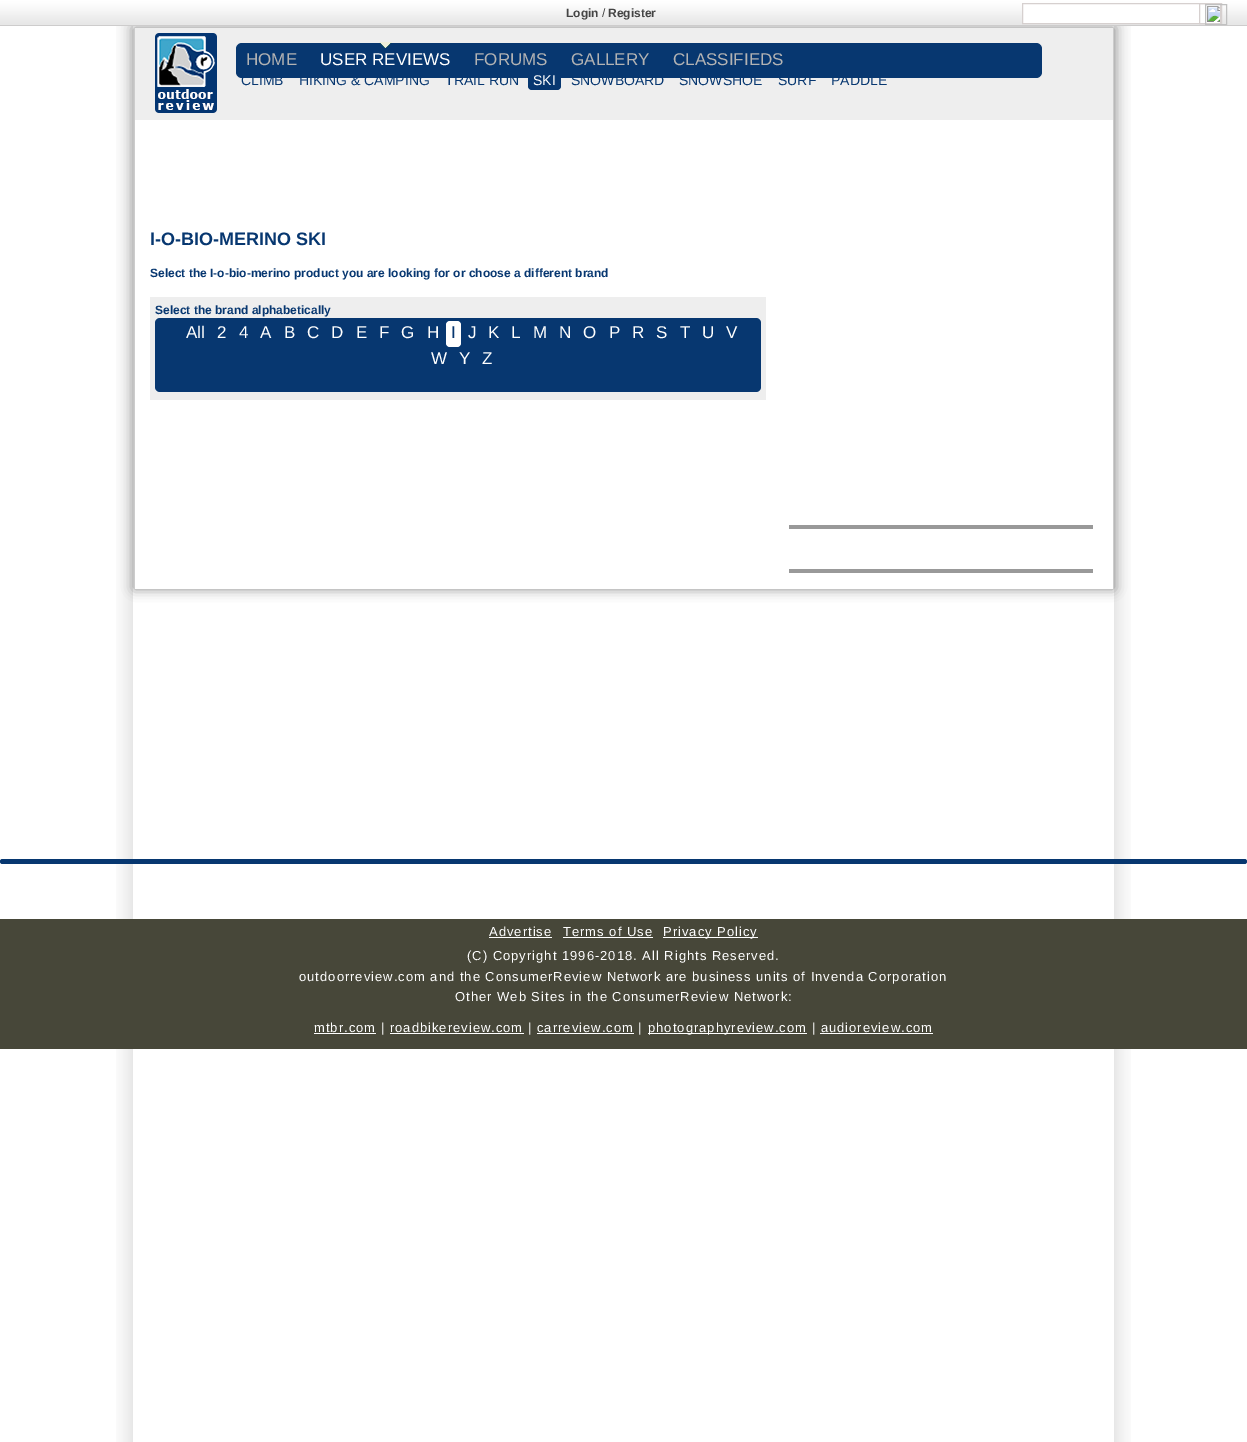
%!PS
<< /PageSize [1247 1442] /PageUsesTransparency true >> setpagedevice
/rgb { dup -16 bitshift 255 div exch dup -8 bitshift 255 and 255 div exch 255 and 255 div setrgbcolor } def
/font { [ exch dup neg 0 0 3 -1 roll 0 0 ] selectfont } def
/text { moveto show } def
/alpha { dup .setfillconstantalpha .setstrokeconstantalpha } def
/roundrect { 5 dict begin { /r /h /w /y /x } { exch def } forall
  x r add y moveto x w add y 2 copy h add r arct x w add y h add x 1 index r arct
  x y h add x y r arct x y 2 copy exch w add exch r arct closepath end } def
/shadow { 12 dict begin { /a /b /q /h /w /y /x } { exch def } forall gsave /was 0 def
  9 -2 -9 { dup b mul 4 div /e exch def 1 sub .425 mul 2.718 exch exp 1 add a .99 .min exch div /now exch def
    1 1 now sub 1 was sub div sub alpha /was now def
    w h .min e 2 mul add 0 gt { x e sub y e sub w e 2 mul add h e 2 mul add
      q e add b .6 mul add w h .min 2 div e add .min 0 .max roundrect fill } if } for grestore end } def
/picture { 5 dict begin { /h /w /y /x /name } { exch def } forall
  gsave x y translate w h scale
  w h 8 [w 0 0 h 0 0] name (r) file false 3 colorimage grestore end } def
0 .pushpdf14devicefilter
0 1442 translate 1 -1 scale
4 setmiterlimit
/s1 { /LiberationSans-Bold 12 font 16#444444 rgb } def
/s2 { /LiberationSans-Regular 12 font 16#444444 rgb } def
/s3 { /LiberationSans-Regular 17 font 16#FFFFFF rgb } def
/s4 { /LiberationSans-Regular 14 font 16#073770 rgb } def
/s5 { /LiberationSans-Regular 14 font 16#FFFFFF rgb } def
/s6 { /LiberationSans-Regular 17 font 16#B3B3B3 rgb } def
/s7 { /LiberationSans-Bold 18 font 16#073770 rgb } def
/s8 { /LiberationSans-Bold 12 font 16#073770 rgb } def
/s9 { /LiberationSans-Regular 17 font 16#073770 rgb } def
16#FFFFFF rgb
0 0 1247 1442 rectfill
(pic1.raw) 116 26 1015 1416 picture
gsave
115 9 moveto 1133 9 lineto 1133 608 lineto 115 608 lineto closepath 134 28 moveto 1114 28 lineto 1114 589 lineto 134 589 lineto closepath eoclip newpath
16#888888 rgb
134 28 980 561 0 6 1 shadow
grestore
(pic2.raw) 0 0 1247 26 picture
s1
(Login) 566 17 text
s2
(/) 602 17 text
s1
(Register) 608 17 text
16#FFFFFF rgb
1023 4 197 19 rectfill
16#D6D0CF rgb
1022.5 3.5 199 20 rectstroke
1199.5 3.5 21 20 rectstroke
(pic3.raw) 1207 6 13 16 picture
16#C0C0C0 rgb
1205.5 4.5 21 20 rectstroke
16#CCCCCC rgb
1113 28 1 561 rectfill
134 28 1 561 rectfill
16#EEEEEE rgb
135 28 978 92 rectfill
(pic4.raw) 155 33 62 80 picture
16#073770 rgb
236 43 806 35 6 roundrect fill
(pic5.raw) 379 42 13 6 picture
s3
(USER REVIEWS) 320 65 text
s4
(CLIMB) 241 85 text
(HIKING & CAMPING) 299 85 text
(TRAIL RUN) 445 85 text
528 70 33 20 4 roundrect fill
s5
(SKI) 533 85 text
s4
(SNOWBOARD) 571 85 text
(SNOWSHOE) 679 85 text
(SURF) 778 85 text
(PADDLE) 831 85 text
s6
(HOME) 246 65 text
(FORUMS) 474 65 text
(GALLERY) 571 65 text
(CLASSIFIEDS) 673 65 text
s7
(I-O-BIO-MERINO SKI) 150 245 text
s8
(Select the I-o-bio-merino product you are looking for or choose a different brand) 150 277 text
16#EEEEEE rgb
150 297 616 103 rectfill
s8
(Select the brand alphabetically) 155 314 text
155 318 606 74 5 roundrect fill
s3
(All) 186 338 text
(2) 217 338 text
(4) 239 338 text
(A) 260 338 text
(B) 284 338 text
(C) 307 338 text
(D) 331 338 text
(E) 356 338 text
(F) 379 338 text
(G) 401 338 text
(H) 427 338 text
446 321 15 26 4 roundrect fill
s9
(I) 451 338 text
s3
(J) 468 338 text
(K) 488 338 text
(L) 511 338 text
(M) 533 338 text
(N) 559 338 text
(O) 583 338 text
(P) 609 338 text
(R) 632 338 text
(S) 656 338 text
(T) 680 338 text
(U) 702 338 text
(V) 726 338 text
(W) 431 364 text
(Y) 459 364 text
(Z) 482 364 text
16#999999 rgb
789 525 304 4 rectfill
789 569 304 4 rectfill
16#073770 rgb
0 859 1247 5 2.5 roundrect fill
16#474739 rgb
0 919 1247 130 rectfill
/LiberationSans-Regular 13 font
16#FFFFFF rgb
489 936 moveto 1 0 (Advertise) ashow
489 937 63 1 rectfill
563 936 moveto 1 0 (Terms of Use) ashow
563 937 90 1 rectfill
663 937 95 1 rectfill
663 936 moveto 1 0 (Privacy Policy) ashow
467 960 moveto 1 0 (\(C\) Copyright 1996-2018. All Rights Reserved.) ashow
299 981 moveto 1 0 (outdoorreview.com and the ConsumerReview Network are business units of Invenda Corporation) ashow
455 1001 moveto 1 0 (Other Web Sites in the ConsumerReview Network:) ashow
314 1033 62 1 rectfill
314 1032 moveto 1 0 (mtbr.com | roadbikereview.com | carreview.com |) ashow
648 1033 159 1 rectfill
648 1032 moveto 1 0 (photographyreview.com | audioreview.com) ashow
390 1033 134 1 rectfill
537 1033 97 1 rectfill
820 1033 113 1 rectfill
.poppdf14devicefilter showpage
